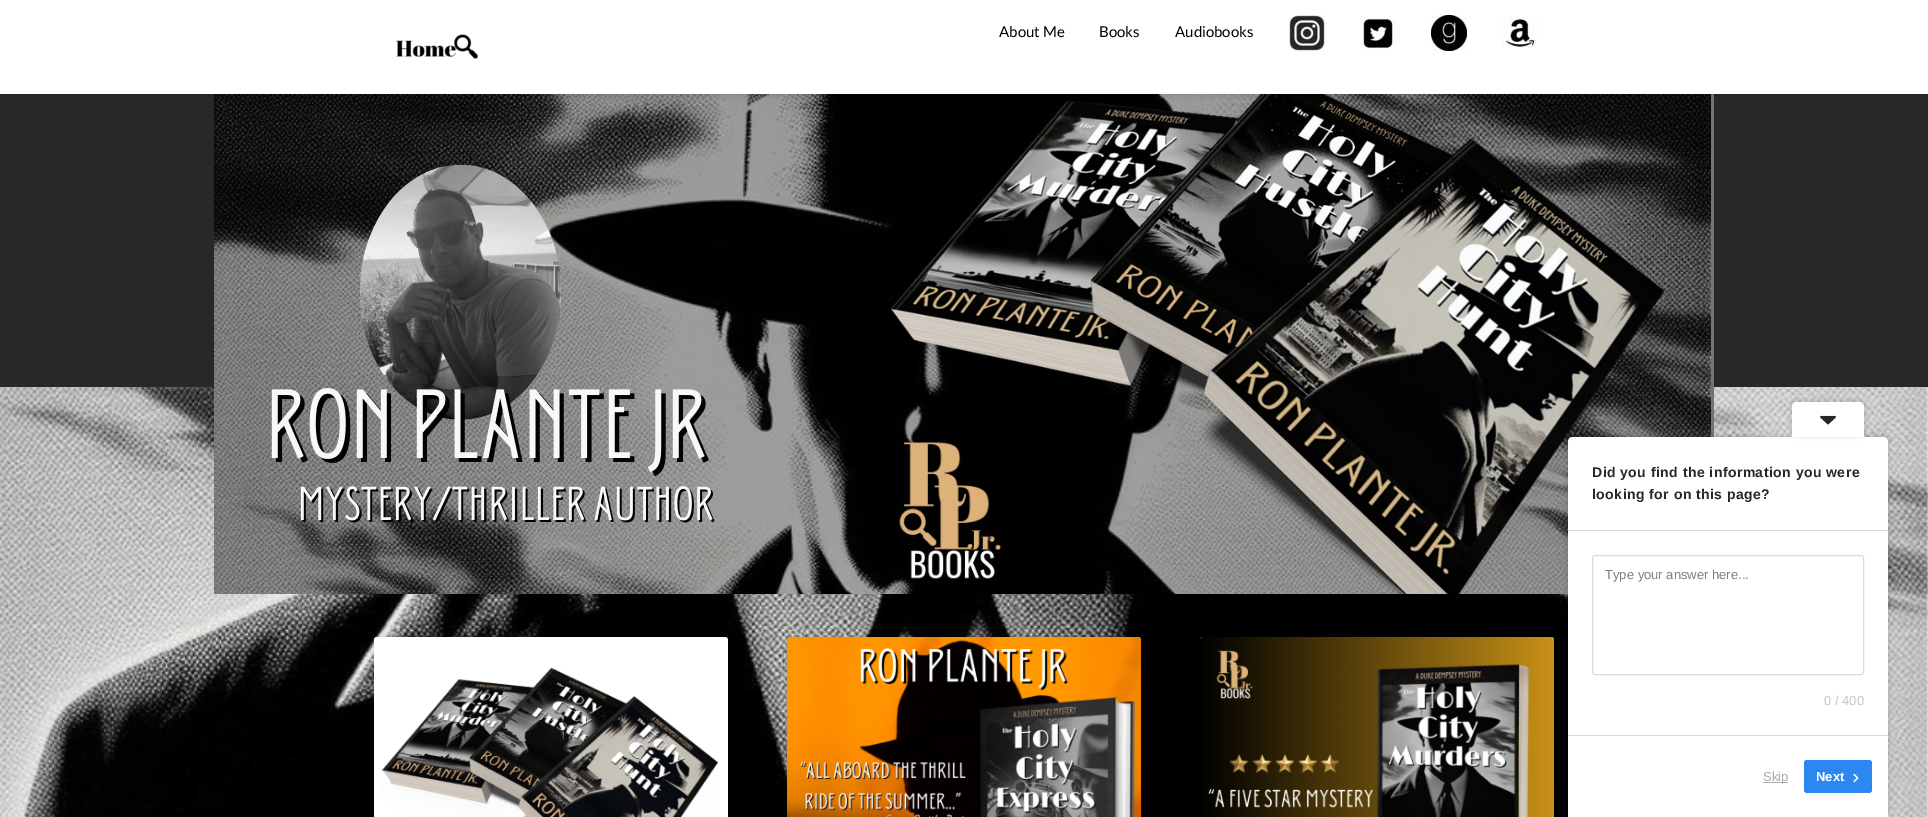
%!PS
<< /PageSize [1928 817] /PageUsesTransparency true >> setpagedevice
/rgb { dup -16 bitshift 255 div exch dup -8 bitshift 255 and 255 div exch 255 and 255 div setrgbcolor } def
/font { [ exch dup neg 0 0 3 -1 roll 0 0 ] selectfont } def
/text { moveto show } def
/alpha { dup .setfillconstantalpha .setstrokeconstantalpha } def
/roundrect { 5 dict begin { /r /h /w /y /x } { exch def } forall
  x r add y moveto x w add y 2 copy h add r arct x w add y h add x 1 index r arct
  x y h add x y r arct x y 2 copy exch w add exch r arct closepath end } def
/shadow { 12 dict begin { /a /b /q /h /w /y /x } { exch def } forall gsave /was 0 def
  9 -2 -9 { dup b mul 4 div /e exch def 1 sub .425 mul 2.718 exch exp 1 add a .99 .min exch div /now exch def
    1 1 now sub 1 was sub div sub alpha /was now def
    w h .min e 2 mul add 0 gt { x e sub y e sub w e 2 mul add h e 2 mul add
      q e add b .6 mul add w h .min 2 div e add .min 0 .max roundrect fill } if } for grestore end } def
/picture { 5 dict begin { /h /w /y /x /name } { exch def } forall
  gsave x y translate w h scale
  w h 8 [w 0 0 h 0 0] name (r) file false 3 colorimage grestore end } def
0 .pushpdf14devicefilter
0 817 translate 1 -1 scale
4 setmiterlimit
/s1 { /Lato-Regular 15 font 16#000000 rgb } def
/s2 { /LiberationSans-Regular 13 font 16#7E7E7E rgb } def
/s3 { /LiberationSans-Regular 13 font 16#C4C4C4 rgb } def
/s4 { /LiberationSans-Regular 13 font 16#AAAAAA rgb } def
/s5 { /LiberationSans-Bold 13 font 16#FFFFFF rgb } def
16#282828 rgb
0 0 1928 817 rectfill
(pic1.raw) 0 387 1928 430 picture
(pic7.raw) 214 94 1500 500 picture
16#000000 rgb
0 2 1928 94 0 2 0.1 shadow
16#FFFFFF rgb
0 0 1928 94 rectfill
s1
(About Me) 999 37 text
(Books) 1099 37 text
(Audiobooks) 1175 37 text
(pic2.raw) 1289 15 36 36 picture
(pic3.raw) 1360 17 36 32 picture
(pic4.raw) 1431 15 36 36 picture
(pic5.raw) 1502 16 35 32 picture
(pic6.raw) 396 34 82 25 picture
374 639 354 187 3 2 0.1 shadow
16#FFFFFF rgb
374 637 354 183 3 roundrect fill
(pic8.raw) 381 667 338 150 picture
16#000000 rgb
787 639 354 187 3 2 0.1 shadow
(pic9.raw) 787 637 354 180 picture
(pic10.raw) 1200 637 354 180 picture
1566 434 324 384 7 1.5 0.07 shadow
16#FFFFFF rgb
1573 437 moveto 1883 437 lineto 1886 437 1888 439 1888 442 curveto 1888 817 lineto 1568 817 lineto 1568 442 lineto 1568 439 1570 437 1573 437 curveto closepath fill
16#000000 rgb
1790 399 76 39 7 1.5 0.07 shadow
16#FFFFFF rgb
1797 402 moveto 1859 402 lineto 1862 402 1864 404 1864 407 curveto 1864 437 lineto 1792 437 lineto 1792 407 lineto 1792 404 1794 402 1797 402 curveto closepath fill
(pic11.raw) 1820 415 16 10 picture
/LiberationSans-Bold 14 font
16#23282D rgb
1592 477 moveto 0.45 0 (Did you find the information you were) ashow
1592 499 moveto 0.45 0 (looking for on this page?) ashow
16#D9D9D9 rgb
1568 530 320 1 rectfill
1568 735 320 1 rectfill
16#DADADA rgb
1592.5 555.5 271 119 2.5 roundrect stroke
s2
(Type your answer here...) 1605 579 text
s3
(0 / 400) 1824 705 text
16#AAAAAA rgb
1763 782 25 1 rectfill
(Skip) 1763 781 text
16#2D87F1 rgb
1804 760 68 33 3 roundrect fill
s5
(Next) 1816 781 text
(pic12.raw) 1853 773 6 10 picture
.poppdf14devicefilter showpage
